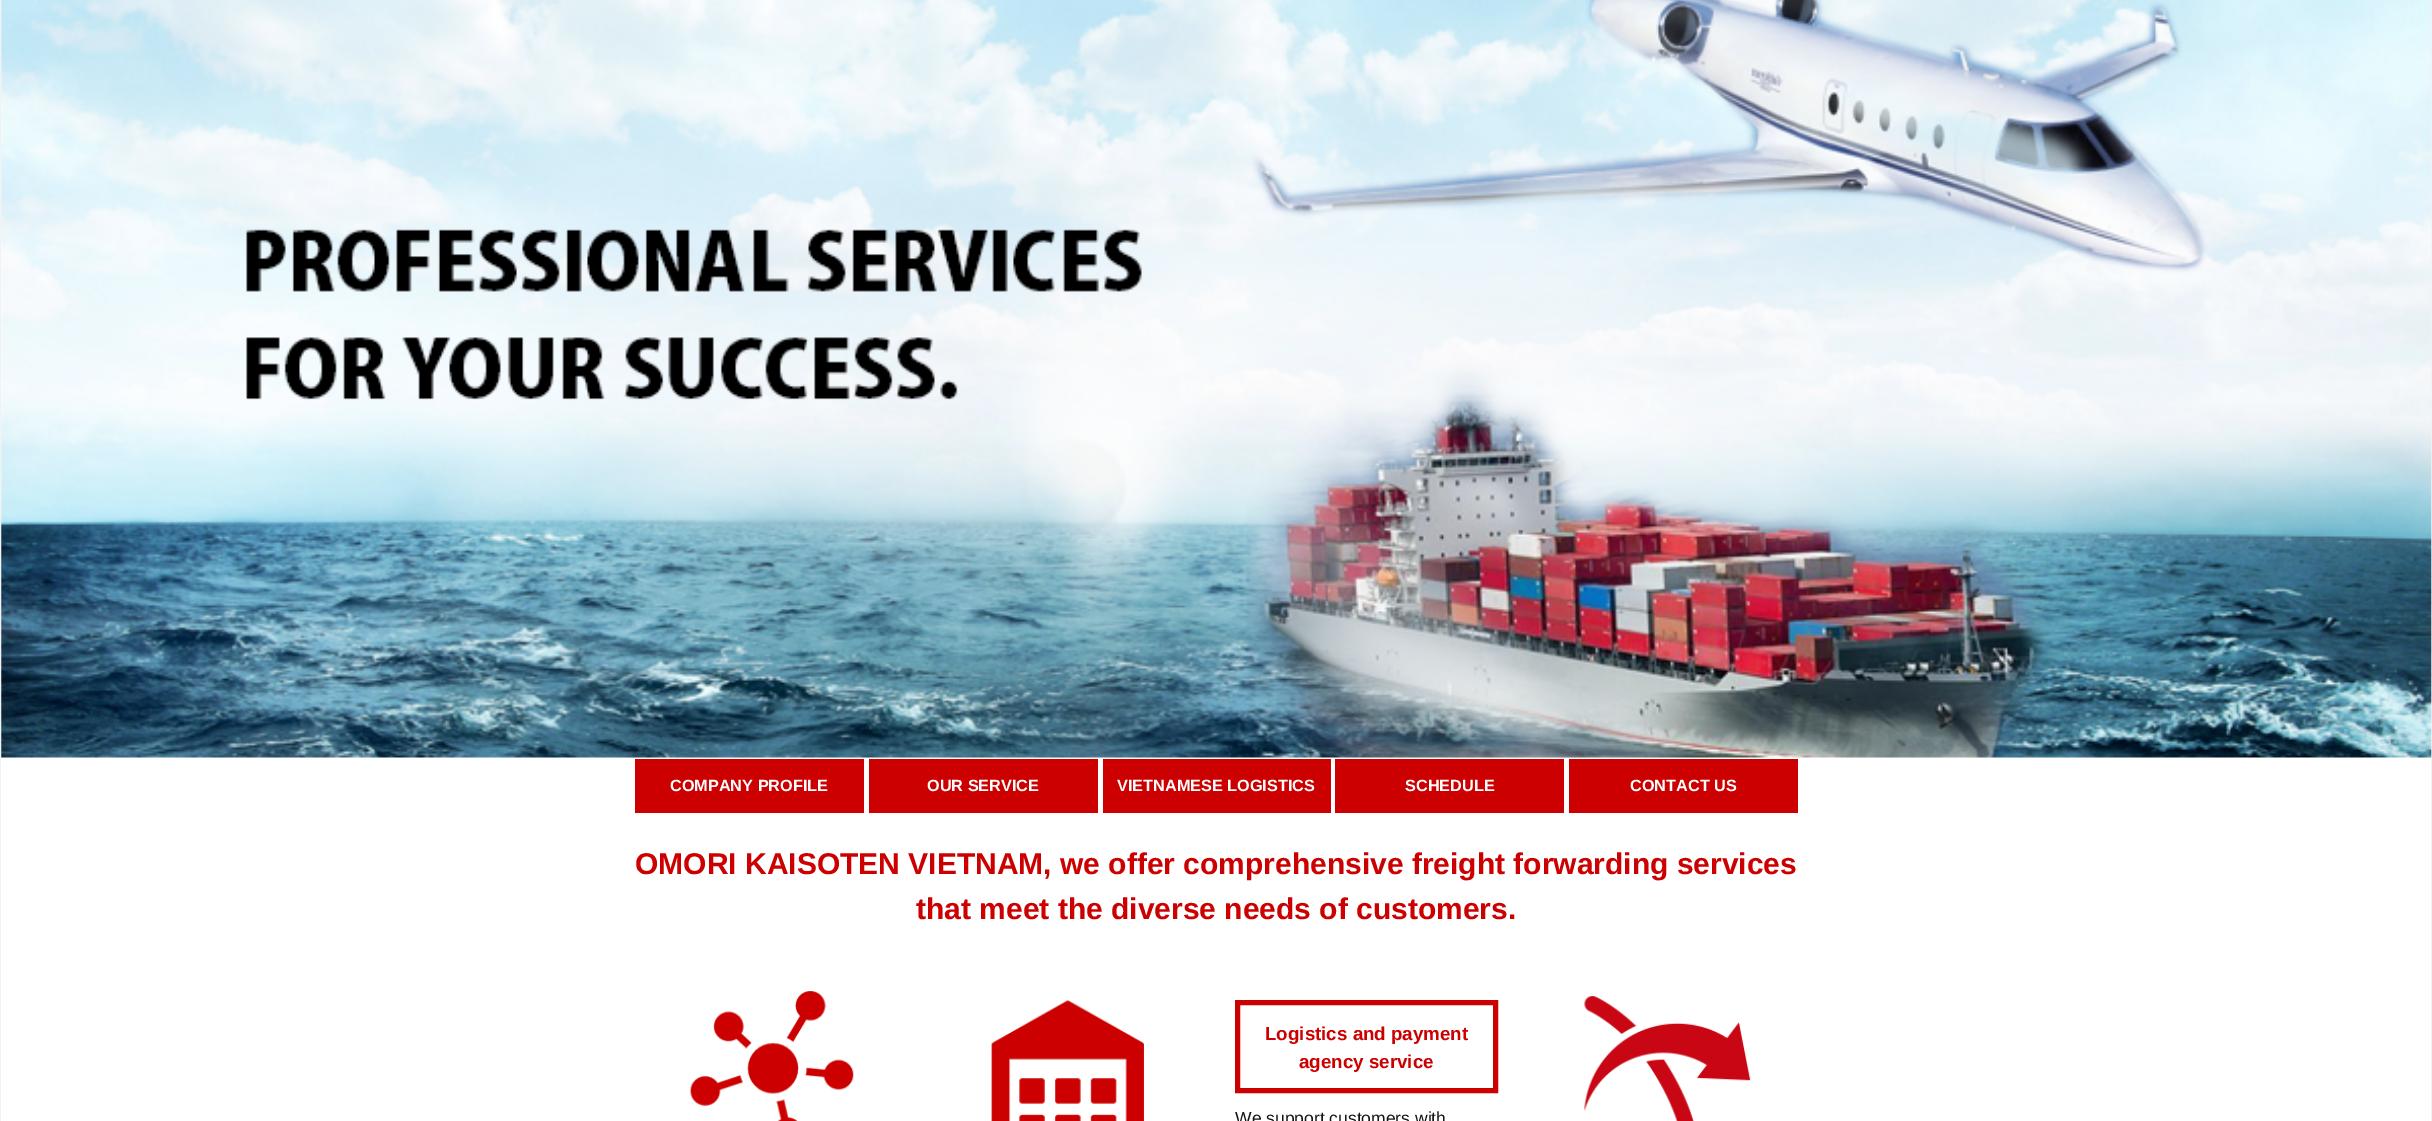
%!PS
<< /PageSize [2432 1121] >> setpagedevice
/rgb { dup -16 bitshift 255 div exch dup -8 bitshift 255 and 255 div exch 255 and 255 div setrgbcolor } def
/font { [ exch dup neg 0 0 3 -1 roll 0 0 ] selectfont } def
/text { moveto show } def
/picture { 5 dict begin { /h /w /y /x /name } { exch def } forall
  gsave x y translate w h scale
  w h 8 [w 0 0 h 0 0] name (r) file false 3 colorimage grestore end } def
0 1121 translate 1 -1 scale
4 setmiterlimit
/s1 { /LiberationSans-Bold 16.25 font 16#FFFFFF rgb } def
/s2 { /LiberationSans-Bold 30 font 16#CC0000 rgb } def
/s3 { /LiberationSans-Bold 18.75 font 16#CC0000 rgb } def
/s4 { /LiberationSans-Regular 17.5 font 16#141412 rgb } def
16#FFFFFF rgb
0 0 2432 1121 rectfill
16#F2F2F2 rgb
2431 0 1 1121 rectfill
0 0 1 1121 rectfill
(pic1.raw) 1 0 2431 758 picture
16#CC0000 rgb
635 759 229 54 rectfill
s1
(COMPANY PROFILE) 670 791 text
16#CC0000 rgb
869 759 229 54 rectfill
s1
(OUR SERVICE) 927 791 text
16#CC0000 rgb
1103 759 228 54 rectfill
s1
(VIETNAMESE LOGISTICS) 1117 791 text
16#CC0000 rgb
1335 759 229 54 rectfill
s1
(SCHEDULE) 1405 791 text
16#CC0000 rgb
1569 759 229 54 rectfill
s1
(CONTACT US) 1630 791 text
s2
(OMORI KAISOTEN VIETNAM, we offer comprehensive freight forwarding services) 635 874 text
(that meet the diverse needs of customers.) 916 919 text
(pic2.raw) 690 991 164 130 picture
(pic3.raw) 991 1000 153 121 picture
5 setlinewidth
1237.5 1002.5 258 88 rectstroke
s3
(Logistics and payment) 1265 1040 text
(agency service) 1299 1068 text
s4
(We support customers with) 1235 1124 text
(pic4.raw) 1584 996 167 125 picture
showpage
